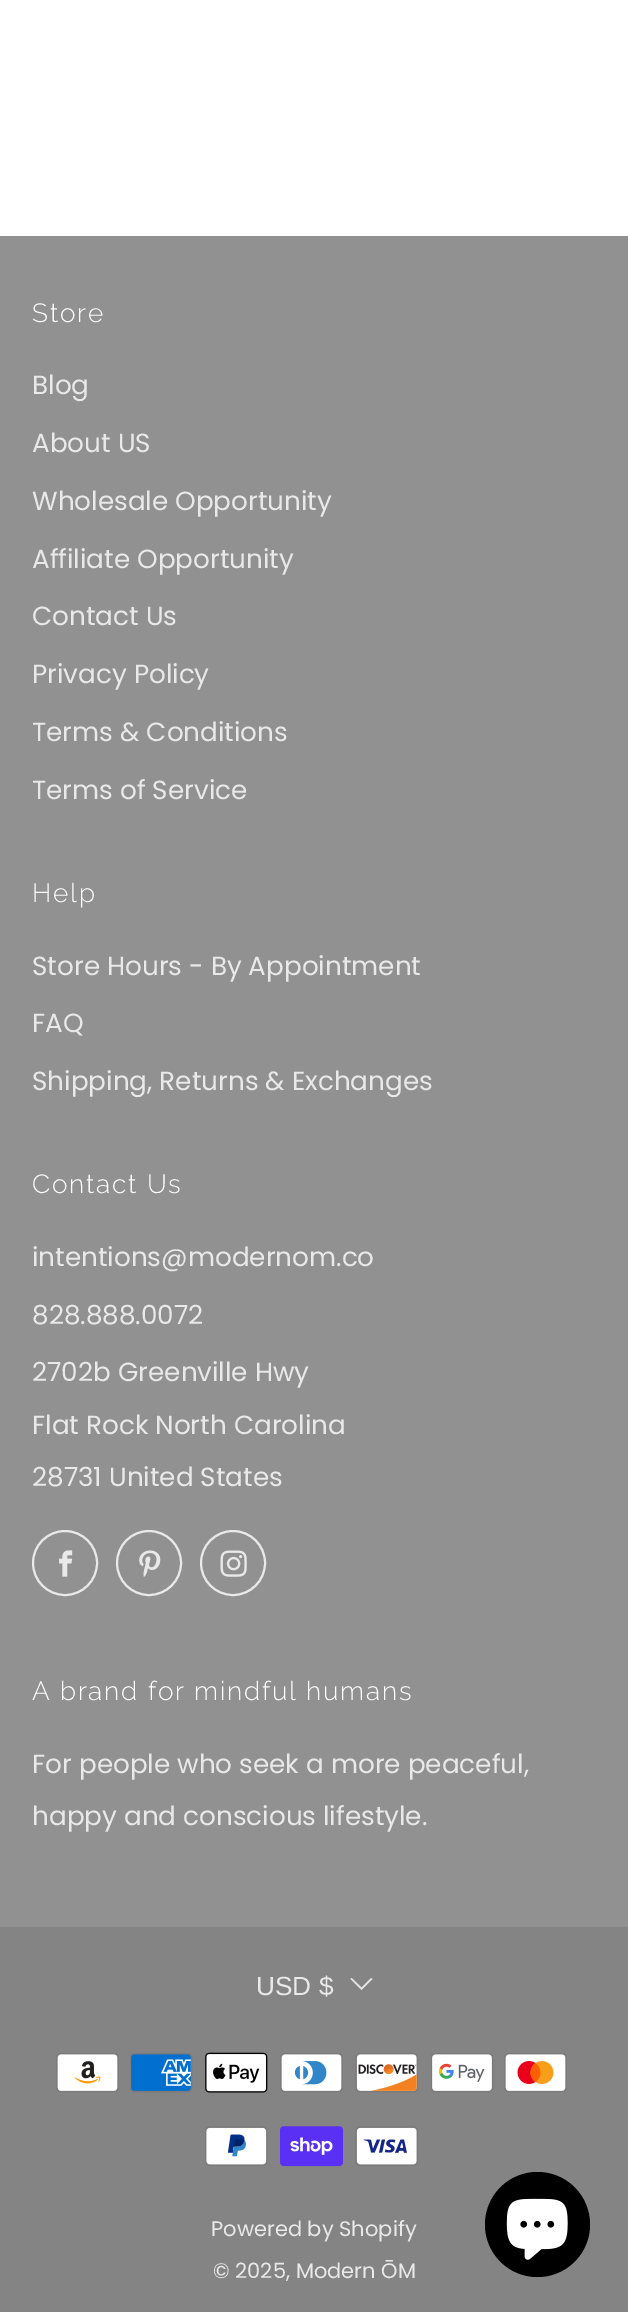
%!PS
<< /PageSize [628 2312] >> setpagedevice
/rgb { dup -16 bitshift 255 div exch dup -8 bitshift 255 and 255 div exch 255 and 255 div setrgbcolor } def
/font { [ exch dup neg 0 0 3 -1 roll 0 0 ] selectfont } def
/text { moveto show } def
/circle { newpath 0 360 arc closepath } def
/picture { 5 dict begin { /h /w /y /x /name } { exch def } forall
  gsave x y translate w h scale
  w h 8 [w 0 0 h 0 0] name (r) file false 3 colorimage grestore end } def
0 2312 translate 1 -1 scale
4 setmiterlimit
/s1 { /Poppins-Regular 26.25 font 16#E9E9E9 rgb } def
/s2 { /LiberationSans-Regular 26.25 font 16#E9E9E9 rgb } def
/s3 { /Poppins-Regular 21 font 16#E9E9E9 rgb } def
16#FFFFFF rgb
0 0 628 2312 rectfill
16#919191 rgb
0 236 628 1691 rectfill
/Raleway-Light 26.25 font
16#FFFFFF rgb
32 322 moveto 1.75 0 (Store) ashow
s1
(Blog) 32 394 text
(About US) 32 452 text
(Wholesale Opportunity) 32 510 text
(Affiliate Opportunity) 32 568 text
(Contact Us) 32 625 text
(Privacy Policy) 32 683 text
(Terms & Conditions) 32 741 text
(Terms of Service) 32 799 text
/Raleway-Light 26.25 font
16#FFFFFF rgb
32 902 moveto 1.75 0 (Help) ashow
s1
(Store Hours - By Appointment) 32 975 text
(FAQ) 32 1032 text
(Shipping, Returns & Exchanges) 32 1090 text
/Raleway-Light 26.25 font
16#FFFFFF rgb
32 1193 moveto 1.75 0 (Contact Us) ashow
s1
(intentions@modernom.co) 32 1266 text
(828.888.0072) 32 1324 text
(2702b Greenville Hwy) 32 1381 text
(Flat Rock North Carolina) 32 1434 text
(28731 United States) 32 1486 text
2 setlinewidth
65 1563 32 circle stroke
(pic1.raw) 59 1550 14 27 picture
149 1563 32 circle stroke
(pic2.raw) 139 1550 22 27 picture
233 1563 32 circle stroke
(pic3.raw) 220 1550 27 27 picture
/Raleway-Light 26.25 font
16#FFFFFF rgb
32 1700 moveto 1.75 0 (A brand for mindful humans) ashow
s1
(For people who seek a more peaceful,) 32 1773 text
(happy and conscious lifestyle.) 32 1825 text
16#848484 rgb
0 1927 628 385 rectfill
s2
(USD $) 256 1995 text
16#E6E6E6 rgb
351.5 1978 moveto 350.5 1979 lineto 361.5 1990 lineto 372.5 1979 lineto 371 1978 lineto 361.5 1987.5 lineto closepath fill
(pic4.raw) 56 2053 63 40 picture
(pic5.raw) 130 2053 63 40 picture
(pic6.raw) 205 2052 63 41 picture
(pic7.raw) 280 2053 63 40 picture
(pic8.raw) 355 2053 63 40 picture
(pic9.raw) 431 2053 63 40 picture
(pic10.raw) 504 2053 63 40 picture
(pic11.raw) 205 2126 63 40 picture
(pic12.raw) 280 2126 63 41 picture
(pic13.raw) 355 2126 63 40 picture
s3
(Powered by Shopify) 211 2236 text
(© 2025, Modern ŌM) 213 2278 text
16#000000 rgb
537.5 2224.5 52.5 circle fill
(pic14.raw) 506 2198 62 62 picture
showpage
